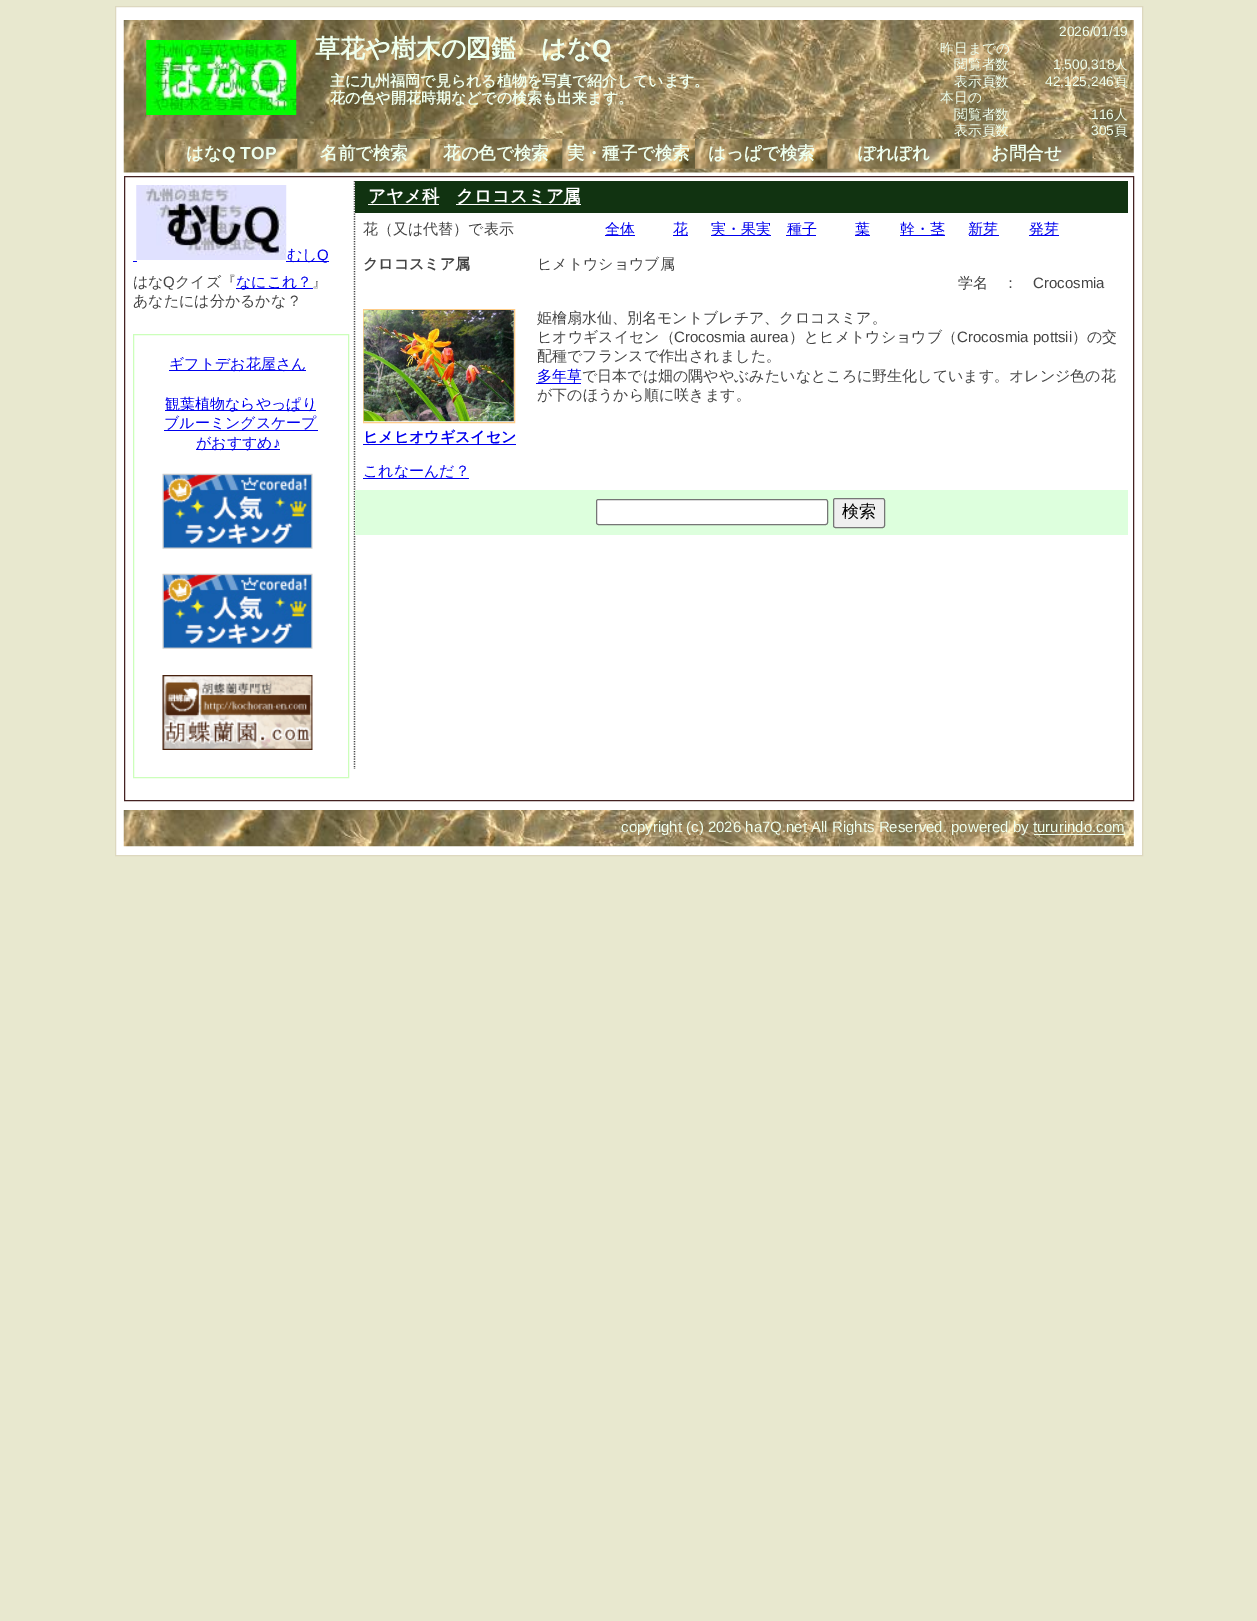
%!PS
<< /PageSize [1257 1621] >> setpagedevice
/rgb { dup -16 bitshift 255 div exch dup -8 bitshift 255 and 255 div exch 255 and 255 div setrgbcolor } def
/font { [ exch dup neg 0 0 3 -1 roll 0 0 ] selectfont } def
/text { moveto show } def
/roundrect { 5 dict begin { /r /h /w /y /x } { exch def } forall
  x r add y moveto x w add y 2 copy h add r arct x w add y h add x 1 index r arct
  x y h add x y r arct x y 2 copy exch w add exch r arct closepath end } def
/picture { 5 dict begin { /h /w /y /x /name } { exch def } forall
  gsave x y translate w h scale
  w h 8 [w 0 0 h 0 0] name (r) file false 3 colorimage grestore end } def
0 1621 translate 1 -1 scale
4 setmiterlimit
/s1 { /WenQuanYiZenHei-Bold 25 font 16#EEFFEE rgb } def
/s2 { /LiberationSans-Bold 25 font 16#EEFFEE rgb } def
/s3 { /WenQuanYiZenHei-Bold 15 font 16#EEFFEE rgb } def
/s4 { /LiberationSans-Regular 13.75 font 16#EEFFEE rgb } def
/s5 { /WenQuanYiZenHei-Medium 13.75 font 16#EEFFEE rgb } def
/s6 { /WenQuanYiZenHei-Bold 17.5 font 16#EEFFEE rgb } def
/s7 { /LiberationSans-Bold 17.5 font 16#EEFFEE rgb } def
/s8 { /WenQuanYiZenHei-Medium 15 font 16#0000EE rgb } def
/s9 { /LiberationSans-Regular 15 font 16#0000EE rgb } def
/s10 { /WenQuanYiZenHei-Medium 15 font 16#444444 rgb } def
/s11 { /LiberationSans-Regular 15 font 16#444444 rgb } def
/s12 { /WenQuanYiZenHei-Bold 17.5 font 16#FFFFFF rgb } def
/s13 { /WenQuanYiZenHei-Bold 15 font 16#444444 rgb } def
/s14 { /WenQuanYiZenHei-Bold 15 font 16#0000EE rgb } def
/s15 { /WenQuanYiZenHei-Medium 17 font 16#000000 rgb } def
/s16 { /LiberationSans-Regular 15 font 16#EEFFEE rgb } def
16#E8E8CF rgb
0 0 1257 1621 rectfill
16#FFFFFF rgb
115.5 6.5 moveto 1142.5 6.5 lineto 1142.5 855.5 lineto 115.5 855.5 lineto closepath gsave fill grestore
16#DDD8BF rgb
stroke
(pic1.raw) 123 20 1011 153 picture
(pic2.raw) 146 40 151 75 picture
s1
(草花や樹木の図鑑　はな) 315 57 text
s2
(Q) 592 57 text
s3
(主に九州福岡で見られる植物を写真で紹介しています。) 330 86 text
(花の色や開花時期などでの検索も出来ます。) 330 103 text
s4
(2026/01/19) 1059 36 text
s5
(昨日までの) 940 53 text
(閲覧者数) 954 69 text
s4
(1,500,318) 1053 69 text
s5
(人) 1114 69 text
(表示頁数) 954 86 text
s4
(42,125,246) 1045 86 text
s5
(頁) 1114 86 text
(本日の) 940 102 text
(閲覧者数) 954 119 text
s4
(116) 1091 119 text
s5
(人) 1114 119 text
(表示頁数) 954 135 text
s4
(305) 1091 135 text
s5
(頁) 1114 135 text
(pic3.raw) 165 138 133 31 picture
s6
(はな) 186 159 text
s7
(Q TOP) 222 159 text
(pic4.raw) 297 138 133 31 picture
s6
(名前で検索) 320 159 text
(pic5.raw) 430 138 133 31 picture
(花の色で検索) 443 159 text
(pic6.raw) 562 138 133 31 picture
(実・種子で検索) 567 159 text
(pic7.raw) 695 138 133 31 picture
(はっぱで検索) 708 159 text
(pic8.raw) 827 138 133 31 picture
(ぽれぽれ) 858 159 text
(pic9.raw) 960 138 133 31 picture
(お問合せ) 991 159 text
16#442222 rgb
124.5 176.5 1009 624 rectstroke
(pic10.raw) 136 185 151 75 picture
16#0000EE rgb
286 261 43 1 rectfill
s8
(むし) 287 260 text
133 261 4 1 rectfill
s9
(Q) 317 260 text
s10
(はな) 133 287 text
s11
(Q) 163 287 text
s10
(クイズ『) 175 287 text
16#0000EE rgb
236 288 77 1 rectfill
(なにこれ？) 236 287 text
s10
(』) 312 287 text
(あなたには分かるかな) 133 306 text
s11
(?) 290 306 text
16#CCFFBB rgb
133.5 334.5 215 443 rectstroke
16#0000EE rgb
169 370 137 1 rectfill
s8
(ギフトデお花屋さん) 169 369 text
165 410 151 1 rectfill
(観葉植物ならやっぱり) 165 409 text
(ブルーミングスケープ) 164 428 text
164 430 154 1 rectfill
196 449 84 1 rectfill
(がおすすめ) 196 448 text
s9
(♪) 273 448 text
(pic11.raw) 162 473 151 76 picture
(pic12.raw) 162 573 151 76 picture
(pic13.raw) 162 675 151 75 picture
16#444444 rgb
1.2 setlinewidth
[1.25 1.25] 0 setdash
354.5 181 moveto 354.5 769 lineto stroke
16#113311 rgb
355 181 773 32 rectfill
16#FFFFFF rgb
368 204 71 1 rectfill
s12
(アヤメ科) 368 202 text
456 204 125 1 rectfill
(クロコスミア属) 456 202 text
s10
(花（又は代替）で表示) 363 234 text
16#0000EE rgb
605 235 30 1 rectfill
(全体) 605 234 text
673 235 15 1 rectfill
(花) 673 234 text
711 235 60 1 rectfill
(実・果実) 711 234 text
786 235 30 1 rectfill
(種子) 787 234 text
855 235 15 1 rectfill
(葉) 855 234 text
900 235 45 1 rectfill
(幹・茎) 900 234 text
969 235 30 1 rectfill
(新芽) 968 234 text
1029 235 30 1 rectfill
(発芽) 1029 234 text
s13
(クロコスミア属) 363 269 text
s10
(ヒメトウショウブ属) 537 269 text
(学名　：) 958 288 text
s11
(Crocosmia) 1033 288 text
s10
(姫檜扇水仙、別名モントブレチア、クロコスミア。) 537 323 text
(ヒオウギスイセン（) 537 342 text
s11
(Crocosmia aurea) 674 342 text
s10
(）とヒメトウショウブ（) 789 342 text
s11
(Crocosmia pottsii) 957 342 text
s10
(）の交) 1072 342 text
(配種でフランスで作出されました。) 537 361 text
s8
(多年草) 537 381 text
536 383 45 1 rectfill
s10
(で日本では畑の隅ややぶみたいなところに野生化しています。オレンジ色の花) 582 381 text
(が下のほうから順に咲きます。) 537 400 text
16#FFCC88 rgb
1 setlinewidth
[] 0 setdash
363.5 309.5 151 113 rectstroke
(pic14.raw) 363 310 151 112 picture
16#0000EE rgb
363 444 153 1 rectfill
s14
(ヒメヒオウギスイセン) 363 442 text
363 478 106 1 rectfill
s8
(これなーんだ？) 363 476 text
16#DDFFDD rgb
355 490 773 45 rectfill
16#FFFFFF rgb
596.5 499.5 231 25 2 roundrect gsave fill grestore
16#767676 rgb
stroke
16#EFEFEF rgb
833.5 498.5 51 29 2 roundrect gsave fill grestore
16#767676 rgb
stroke
s15
(検索) 842 517 text
(pic15.raw) 123 810 1011 37 picture
s16
(copyright \(c\) 2026 ha7Q.net All Rights Reserved. powered by tururindo.com) 621 832 text
1034 834 91 1 rectfill
showpage
